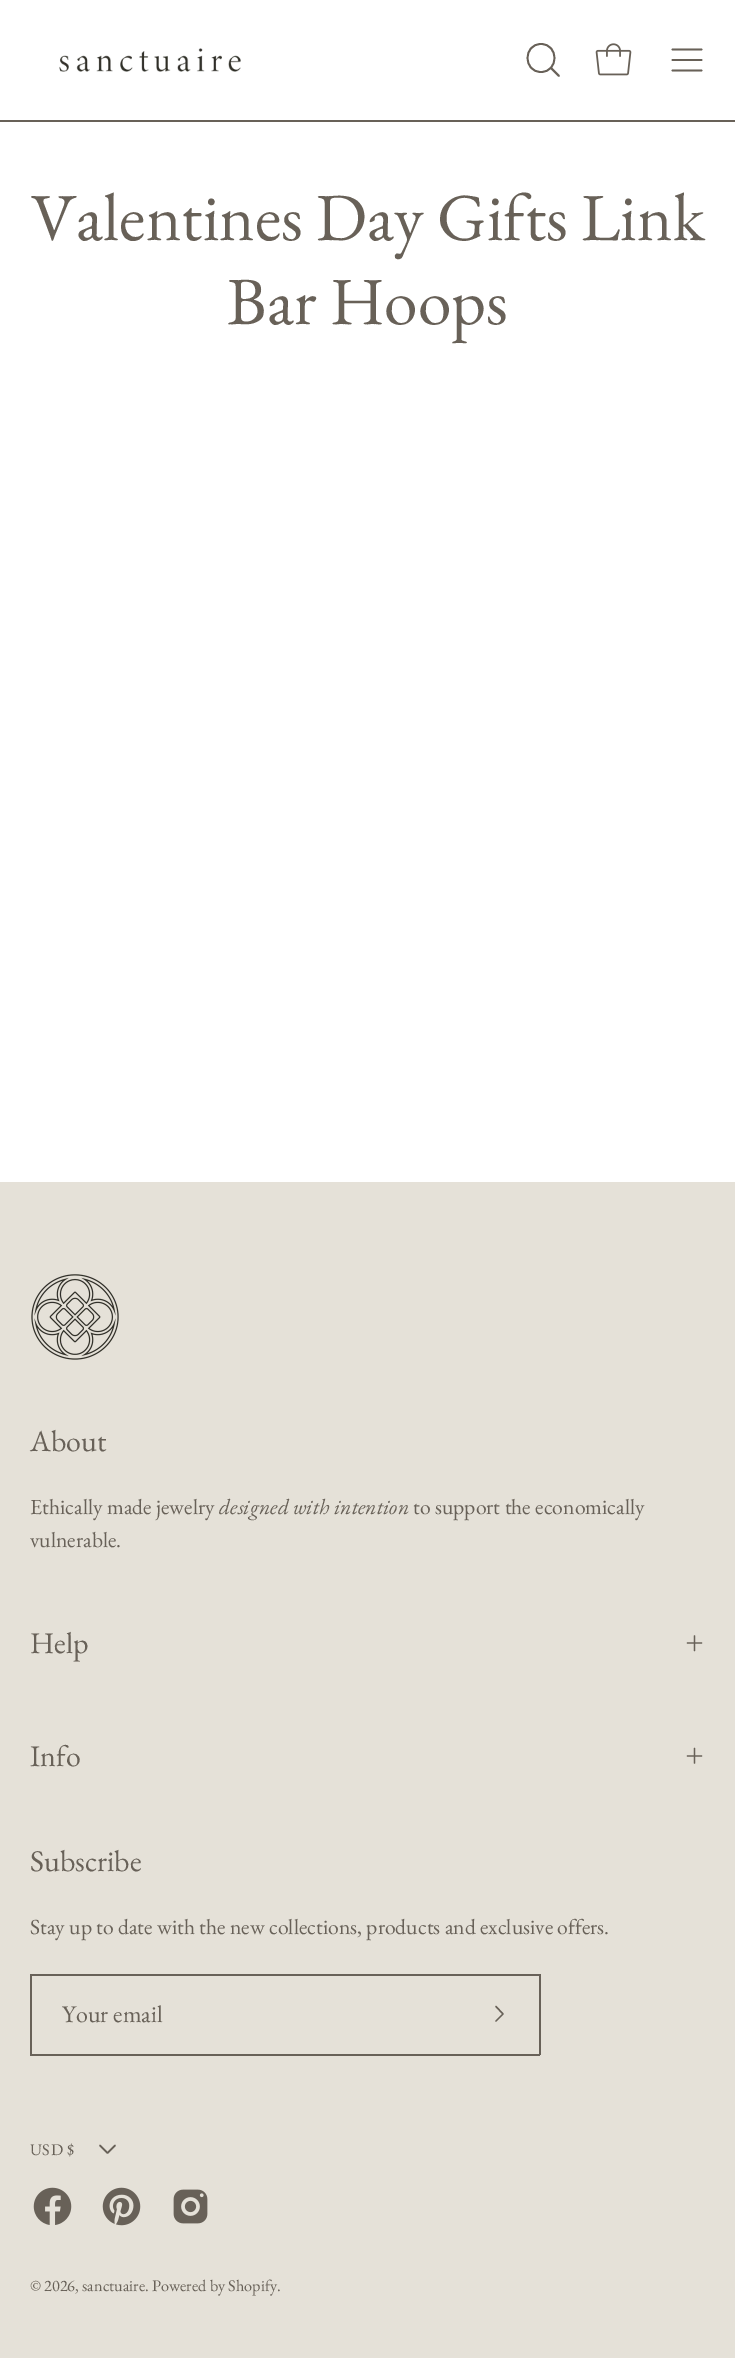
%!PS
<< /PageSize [735 2358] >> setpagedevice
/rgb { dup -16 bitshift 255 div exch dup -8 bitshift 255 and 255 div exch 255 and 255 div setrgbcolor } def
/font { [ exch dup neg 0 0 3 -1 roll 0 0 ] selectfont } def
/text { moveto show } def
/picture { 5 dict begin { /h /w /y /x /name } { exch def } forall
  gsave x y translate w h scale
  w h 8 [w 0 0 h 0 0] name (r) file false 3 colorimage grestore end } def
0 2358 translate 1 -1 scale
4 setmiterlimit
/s1 { /EBGaramond-Regular 67.5 font 16#686158 rgb } def
/s2 { /EBGaramond-Regular 30 font 16#686158 rgb } def
/s3 { /EBGaramond-Regular 21.6 font 16#686158 rgb } def
/s4 { /EBGaramond-Italic 21.6 font 16#686158 rgb } def
/s5 { /EBGaramond-Regular 24 font 16#686158 rgb } def
/s6 { /EBGaramond-Regular 16.25 font 16#686158 rgb } def
16#FFFFFF rgb
0 0 735 2358 rectfill
16#686158 rgb
0 120 735 2 rectfill
(pic1.raw) 59 48 182 24 picture
1.8 setlinewidth
1 setlinecap
1 setlinejoin
541 72 moveto 559 72 559 44 541 44 curveto 523 44 523 72 541 72 curveto closepath 551 68 moveto 559 76 lineto stroke
(pic2.raw) 595 43 37 33 picture
672.5 60 moveto 701.5 60 lineto 672.5 49.5 moveto 701.5 49.5 lineto 672.5 70.5 moveto 701.5 70.5 lineto stroke
s1
(Valentines Day Gifts Link) 31 240 text
(Bar Hoops) 227 324 text
16#E5E1D8 rgb
0 1182 735 1176 rectfill
(pic3.raw) 31 1274 88 86 picture
s2
(About) 30 1451 text
s3
(Ethically made jewelry) 30 1514 text
s4
(designed with intention) 219 1514 text
s3
(to support the economically) 413 1514 text
(vulnerable.) 30 1547 text
s2
(Help) 30 1653 text
1.3 setlinewidth
687.5 1643 moveto 701.5 1643 lineto 694.5 1636 moveto 694.5 1650.5 lineto stroke
(Info) 30 1766 text
687.5 1756 moveto 701.5 1756 lineto 694.5 1748.5 moveto 694.5 1763 lineto stroke
(Subscribe) 30 1871 text
s3
(Stay up to date with the new collections, products and exclusive offers.) 30 1934 text
30 1974 510 2 rectfill
30 2054 429 2 rectfill
30 1974 2 81 rectfill
s5
(Your email) 62 2022 text
539 1974 2 81 rectfill
459 2054 81 2 rectfill
1.4 setlinewidth
496 2006.5 moveto 503 2014 lineto 496 2021 lineto stroke
/EBGaramond-Regular 16.25 font
30 2155 moveto 0.5 0 (USD $) ashow
1.5 setlinewidth
115 2145.5 moveto 107.5 2153 lineto 100 2145.5 lineto stroke
(pic4.raw) 33 2187 39 38 picture
(pic5.raw) 102 2187 39 39 picture
(pic6.raw) 173 2189 35 35 picture
(© 2026, sanctuaire. Powered by Shopify.) 30 2291 text
showpage
